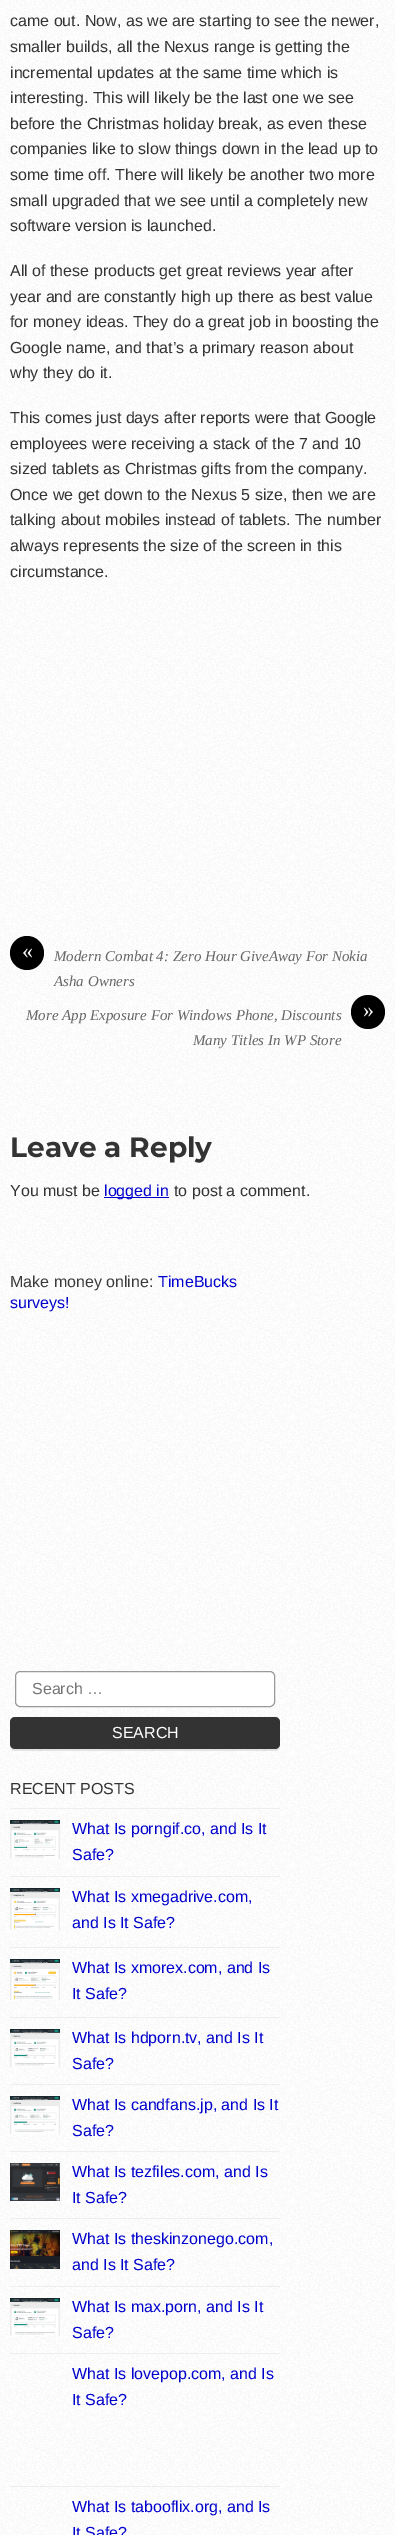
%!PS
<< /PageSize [395 2535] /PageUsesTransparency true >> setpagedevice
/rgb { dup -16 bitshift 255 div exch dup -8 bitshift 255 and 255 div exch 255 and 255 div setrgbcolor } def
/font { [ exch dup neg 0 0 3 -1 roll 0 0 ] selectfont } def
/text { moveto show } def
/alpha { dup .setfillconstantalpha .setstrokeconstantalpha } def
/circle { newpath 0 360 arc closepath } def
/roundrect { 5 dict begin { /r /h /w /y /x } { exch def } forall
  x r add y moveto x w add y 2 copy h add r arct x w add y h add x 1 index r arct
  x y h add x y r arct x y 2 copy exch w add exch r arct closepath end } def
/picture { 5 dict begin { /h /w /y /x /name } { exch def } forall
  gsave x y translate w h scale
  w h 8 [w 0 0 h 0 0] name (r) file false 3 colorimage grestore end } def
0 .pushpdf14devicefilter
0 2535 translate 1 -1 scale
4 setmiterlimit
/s1 { /LiberationSans-Regular 16 font 16#333333 rgb } def
/s2 { /LiberationSerif-Regular 22 font 16#FFFFFF rgb } def
/s3 { /LiberationSerif-Italic 15 font 16#666666 rgb } def
/s4 { /Montserrat-Bold 28 font 16#333333 rgb } def
/s5 { /LiberationSans-Regular 16 font 16#0000CC rgb } def
/s6 { /LiberationSans-Regular 16 font 16#3A3A3A rgb } def
/s7 { /LiberationSans-Regular 16 font 16#757575 rgb } def
/s8 { /LiberationSans-Regular 16 font 16#FFFFFF rgb } def
16#FFFFFF rgb
0 0 395 2535 rectfill
(pic1.raw) 0 0 395 2535 picture
s1
(came out. Now, as we are starting to see the newer,) 10 26 text
(smaller builds, all the Nexus range is getting the) 10 52 text
(incremental updates at the same time which is) 10 78 text
(interesting. This will likely be the last one we see) 10 103 text
(before the Christmas holiday break, as even these) 10 129 text
(companies like to slow things down in the lead up to) 10 154 text
(some time off. There will likely be another two more) 10 180 text
(small upgraded that we see until a completely new) 10 206 text
(software version is launched.) 10 231 text
(All of these products get great reviews year after) 10 276 text
(year and are constantly high up there as best value) 10 302 text
(for money ideas. They do a great job in boosting the) 10 327 text
(Google name, and that’s a primary reason about) 10 353 text
(why they do it.) 10 378 text
(This comes just days after reports were that Google) 10 423 text
(employees were receiving a stack of the 7 and 10) 10 449 text
(sized tablets as Christmas gifts from the company.) 10 474 text
(Once we get down to the Nexus 5 size, then we are) 10 500 text
(talking about mobiles instead of tablets. The number) 10 525 text
(always represents the size of the screen in this) 10 551 text
(circumstance.) 10 577 text
16#000000 rgb
27 953 17 circle fill
s2
(«) 22 958 text
s3
(Modern Combat 4: Zero Hour GiveAway For Nokia) 54 961 text
(Asha Owners) 54 986 text
(More App Exposure For Windows Phone, Discounts) 26 1020 text
16#000000 rgb
368 1012 17 circle fill
s2
(») 363 1017 text
s3
(Many Titles In WP Store) 193 1045 text
s4
(Leave a Reply) 10 1157 text
s1
(You must be) 10 1196 text
16#0000CC rgb
104 1197 65 1 rectfill
(logged in) 104 1196 text
s1
(to post a comment.) 174 1196 text
s6
(Make money online:) 10 1287 text
s5
(TimeBucks) 158 1287 text
(surveys!) 10 1308 text
16#FFFFFF rgb
15.5 1671.5 259 35 4.5 roundrect gsave fill grestore
16#999999 rgb
stroke
s7
(Search …) 32 1694 text
0.1 alpha
16#000000 rgb
10 1744 moveto 10 1746 lineto 10 1749 12 1751 15 1751 curveto 275 1751 lineto 278 1751 280 1749 280 1746 curveto 280 1744 lineto 280 1747 278 1749 275 1749 curveto 15 1749 lineto 12 1749 10 1747 10 1744 curveto closepath fill
1 alpha
16#333333 rgb
10 1717 270 32 5 roundrect fill
s8
(SEARCH) 112 1738 text
s1
(RECENT POSTS) 10 1794 text
16#EEEEEE rgb
10 1808 270 1 rectfill
(pic2.raw) 10 1820 50 39 picture
s5
(What Is porngif.co, and Is It) 72 1834 text
(Safe?) 72 1860 text
16#EEEEEE rgb
10 1876 270 1 rectfill
(pic3.raw) 10 1888 50 42 picture
s5
(What Is xmegadrive.com,) 72 1902 text
(and Is It Safe?) 72 1928 text
16#EEEEEE rgb
10 1947 270 1 rectfill
(pic4.raw) 10 1959 50 41 picture
s5
(What Is xmorex.com, and Is) 72 1973 text
(It Safe?) 72 1999 text
16#EEEEEE rgb
10 2017 270 1 rectfill
(pic5.raw) 10 2029 50 38 picture
s5
(What Is hdporn.tv, and Is It) 72 2043 text
(Safe?) 72 2069 text
16#EEEEEE rgb
10 2084 270 1 rectfill
(pic6.raw) 10 2096 50 38 picture
s5
(What Is candfans.jp, and Is It) 72 2110 text
(Safe?) 72 2136 text
16#EEEEEE rgb
10 2151 270 1 rectfill
(pic7.raw) 10 2163 50 38 picture
s5
(What Is tezfiles.com, and Is) 72 2177 text
(It Safe?) 72 2203 text
16#EEEEEE rgb
10 2218 270 1 rectfill
(pic8.raw) 10 2230 50 39 picture
s5
(What Is theskinzonego.com,) 72 2244 text
(and Is It Safe?) 72 2270 text
16#EEEEEE rgb
10 2286 270 1 rectfill
(pic9.raw) 10 2298 50 38 picture
s5
(What Is max.porn, and Is It) 72 2312 text
(Safe?) 72 2338 text
16#EEEEEE rgb
10 2353 270 1 rectfill
s5
(What Is lovepop.com, and Is) 72 2379 text
(It Safe?) 72 2405 text
16#EEEEEE rgb
10 2486 270 1 rectfill
s5
(What Is tabooflix.org, and Is) 72 2512 text
(It Safe?) 72 2538 text
.poppdf14devicefilter showpage
